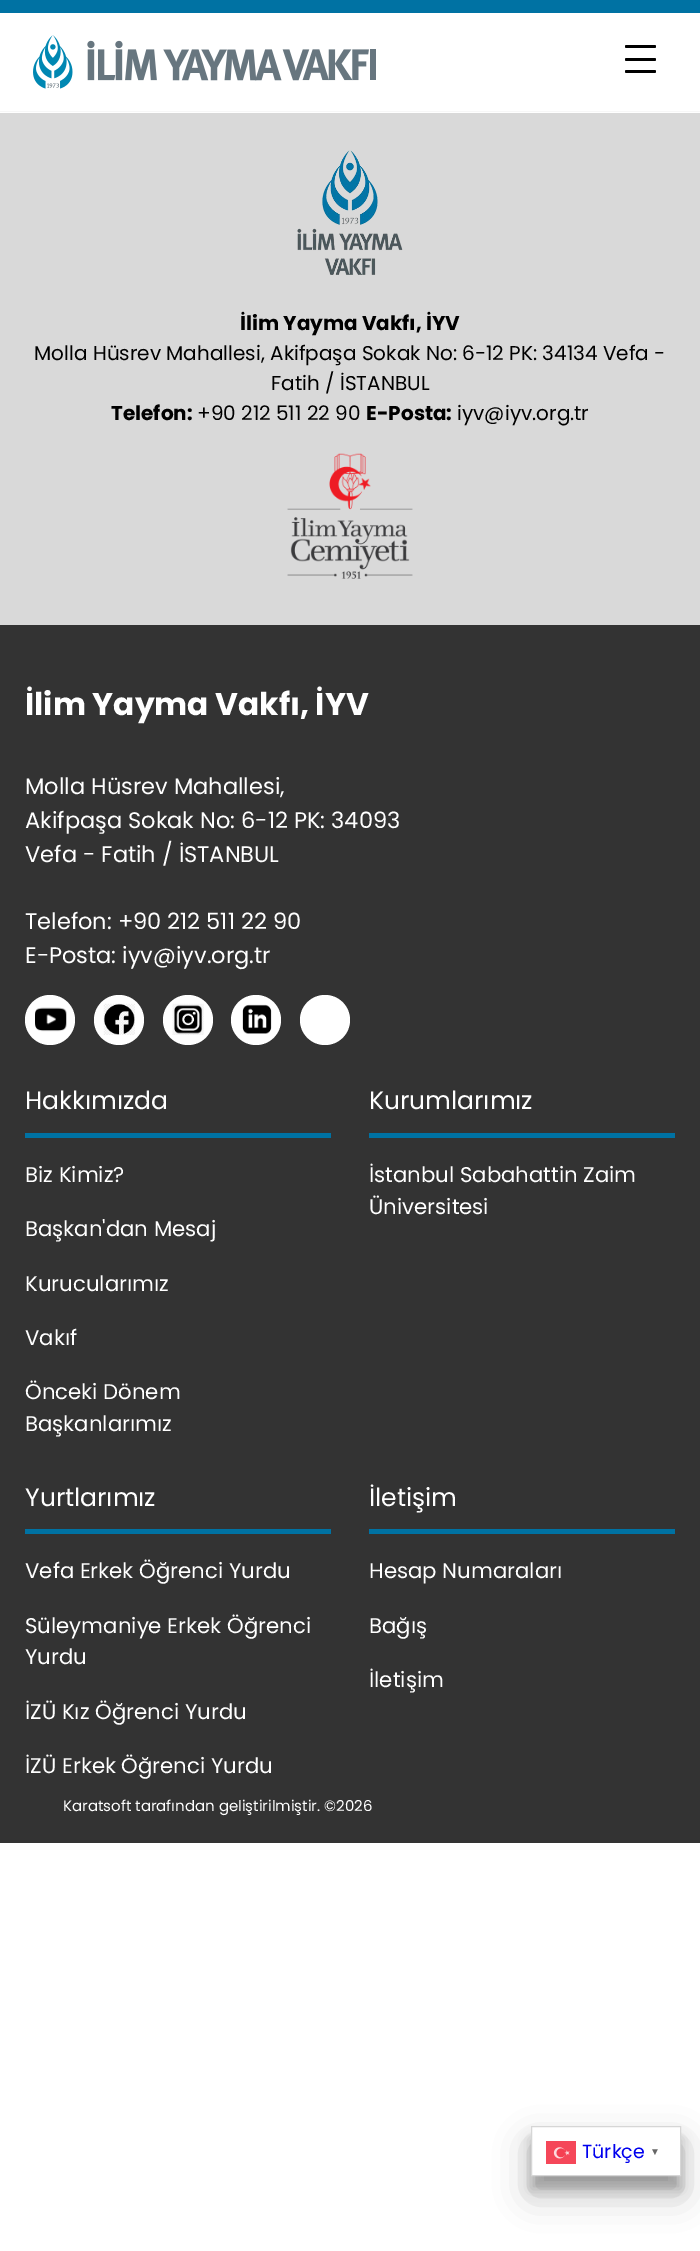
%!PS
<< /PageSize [700 2251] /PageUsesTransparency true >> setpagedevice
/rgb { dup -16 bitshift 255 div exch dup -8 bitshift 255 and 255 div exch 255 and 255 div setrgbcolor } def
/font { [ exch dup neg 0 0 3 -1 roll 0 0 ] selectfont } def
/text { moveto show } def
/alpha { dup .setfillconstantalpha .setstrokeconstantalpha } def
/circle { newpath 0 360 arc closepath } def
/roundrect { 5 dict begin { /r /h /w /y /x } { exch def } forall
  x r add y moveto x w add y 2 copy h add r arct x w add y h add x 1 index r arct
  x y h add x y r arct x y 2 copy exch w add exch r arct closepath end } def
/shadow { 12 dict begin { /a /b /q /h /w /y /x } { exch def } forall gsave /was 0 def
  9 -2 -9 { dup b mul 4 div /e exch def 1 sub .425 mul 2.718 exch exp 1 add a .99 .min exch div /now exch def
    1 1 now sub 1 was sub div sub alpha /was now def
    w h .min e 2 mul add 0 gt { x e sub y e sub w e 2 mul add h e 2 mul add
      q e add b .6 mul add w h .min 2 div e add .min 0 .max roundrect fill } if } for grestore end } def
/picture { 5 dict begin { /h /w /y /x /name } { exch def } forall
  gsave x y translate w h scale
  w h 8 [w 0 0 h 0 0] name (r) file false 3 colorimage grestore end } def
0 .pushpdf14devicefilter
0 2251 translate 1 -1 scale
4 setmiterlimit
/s1 { /Poppins-Bold 20 font 16#000000 rgb } def
/s2 { /Poppins-Regular 20 font 16#000000 rgb } def
/s3 { /Poppins-Bold 31.25 font 16#FFFFFF rgb } def
/s4 { /Poppins-Regular 22.5 font 16#FFFFFF rgb } def
/s5 { /Poppins-Regular 25 font 16#FFFFFF rgb } def
/s6 { /Poppins-Regular 21.25 font 16#FFFFFF rgb } def
/s7 { /Poppins-Regular 15 font 16#FFFFFF rgb } def
/s8 { /Poppins-Regular 19 font 16#0000EE rgb } def
/s9 { /LiberationSans-Bold 10 font 16#666666 rgb } def
16#FFFFFF rgb
0 0 700 2251 rectfill
16#D9D9D9 rgb
0 113 700 512 rectfill
(pic1.raw) 297 150 106 125 picture
s1
(İlim Yayma Vakfı, İYV) 240 330 text
s2
(Molla Hüsrev Mahallesi, Akifpaşa Sokak No: 6-12 PK: 34134 Vefa -) 34 360 text
(Fatih / İSTANBUL) 271 390 text
s1
(Telefon:) 111 420 text
s2
(+90 212 511 22 90) 197 420 text
s1
(E-Posta:) 366 420 text
s2
(iyv@iyv.org.tr) 457 420 text
(pic2.raw) 287 453 126 126 picture
16#333333 rgb
0 625 700 1218 rectfill
s3
(İlim Yayma Vakfı, İYV) 25 715 text
s4
(Molla Hüsrev Mahallesi,) 25 794 text
(Akifpaşa Sokak No: 6-12 PK: 34093) 25 828 text
(Vefa - Fatih / İSTANBUL) 25 862 text
(Telefon: +90 212 511 22 90) 25 929 text
(E-Posta: iyv@iyv.org.tr) 25 963 text
50 1020 25 circle fill
(pic3.raw) 35 1007 32 25 picture
119 1020 25 circle fill
(pic4.raw) 103 1003 32 32 picture
188 1020 25 circle fill
(pic5.raw) 172 1003 32 32 picture
256 1020 25 circle fill
(pic6.raw) 242 1004 30 30 picture
325 1020 25 circle fill
16#0072A3 rgb
25 1133 306 5 rectfill
s5
(Hakkımızda) 25 1109 text
s6
(Biz Kimiz?) 25 1182 text
(Başkan'dan Mesaj) 25 1236 text
(Kurucularımız) 25 1291 text
(Vakıf) 25 1345 text
(Önceki Dönem) 25 1399 text
(Başkanlarımız) 25 1431 text
16#0072A3 rgb
369 1133 306 5 rectfill
s5
(Kurumlarımız) 369 1109 text
s6
(İstanbul Sabahattin Zaim) 369 1182 text
(Üniversitesi) 369 1214 text
16#0072A3 rgb
25 1529 306 5 rectfill
s5
(Yurtlarımız) 25 1506 text
s6
(Vefa Erkek Öğrenci Yurdu) 25 1578 text
(Süleymaniye Erkek Öğrenci) 25 1633 text
(Yurdu) 25 1664 text
(İZÜ Kız Öğrenci Yurdu) 25 1719 text
(İZÜ Erkek Öğrenci Yurdu) 25 1773 text
16#0072A3 rgb
369 1529 306 5 rectfill
s5
(İletişim) 369 1506 text
s6
(Hesap Numaraları) 369 1578 text
(Bağış) 369 1633 text
(İletişim) 369 1687 text
s7
(Karatsoft tarafından geliştirilmiştir. ©2026) 63 1811 text
16#0072A3 rgb
0 0 700 13 rectfill
16#F7F7F7 rgb
0 111 700 1 rectfill
(pic7.raw) 33 35 343 54 picture
16#000000 rgb
625 58 31 3 1.5 roundrect fill
625 45 31 3 1.5 roundrect fill
625 70 31 3 1.5 roundrect fill
531 2139 150 50 0 6 0.22 shadow
531 2144 150 50 0 17.5 0.25 shadow
16#FFFFFF rgb
531.5 2126.5 moveto 680.5 2126.5 lineto 680.5 2175.5 lineto 531.5 2175.5 lineto closepath gsave fill grestore
16#D6D6D6 rgb
stroke
(pic8.raw) 546 2141 30 23 picture
s8
(Türkçe) 582 2158 text
s9
(▼) 650 2155 text
.poppdf14devicefilter showpage
